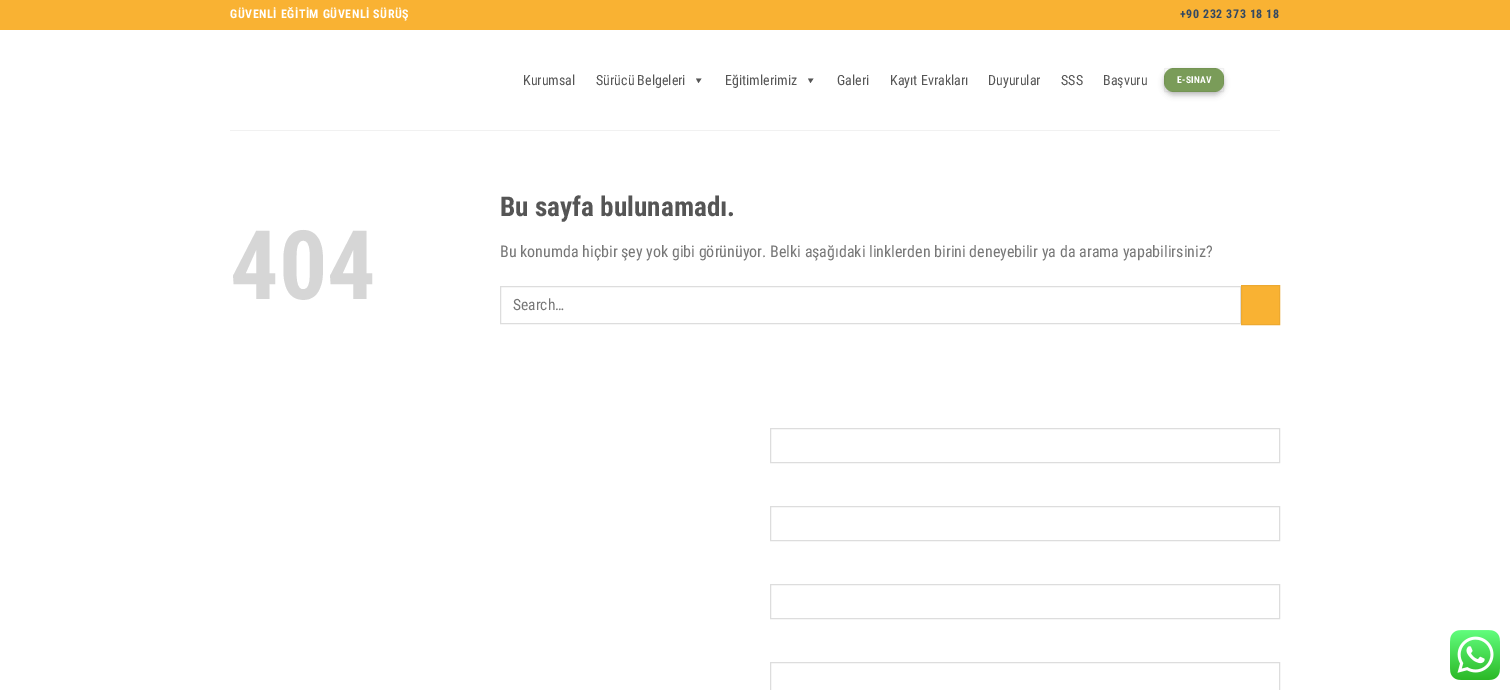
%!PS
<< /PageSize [1510 690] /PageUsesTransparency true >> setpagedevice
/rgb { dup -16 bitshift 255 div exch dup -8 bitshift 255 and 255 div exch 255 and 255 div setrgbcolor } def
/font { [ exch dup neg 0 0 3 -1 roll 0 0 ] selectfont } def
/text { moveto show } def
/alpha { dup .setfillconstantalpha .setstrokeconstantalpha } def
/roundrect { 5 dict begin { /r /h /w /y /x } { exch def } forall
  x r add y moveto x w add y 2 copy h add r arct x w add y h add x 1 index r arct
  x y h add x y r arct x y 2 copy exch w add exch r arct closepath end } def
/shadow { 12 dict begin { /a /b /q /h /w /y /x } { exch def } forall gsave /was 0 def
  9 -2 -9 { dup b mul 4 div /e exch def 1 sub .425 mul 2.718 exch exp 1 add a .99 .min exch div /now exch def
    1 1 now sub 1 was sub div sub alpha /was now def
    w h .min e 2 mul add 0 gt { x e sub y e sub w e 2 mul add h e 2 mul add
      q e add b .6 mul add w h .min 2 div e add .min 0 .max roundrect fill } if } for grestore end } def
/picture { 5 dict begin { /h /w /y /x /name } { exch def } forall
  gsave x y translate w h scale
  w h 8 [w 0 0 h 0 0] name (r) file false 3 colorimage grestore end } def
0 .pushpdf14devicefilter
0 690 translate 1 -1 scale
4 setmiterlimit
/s1 { /RobotoCondensed-Regular 14 font 16#555555 rgb } def
/s2 { /RobotoCondensed-Bold 96 font 16#D6D6D6 rgb } def
/s3 { /RobotoCondensed-Bold 27.25 font 16#555555 rgb } def
/s4 { /RobotoCondensed-Regular 16 font 16#777777 rgb } def
/s5 { /RobotoCondensed-Regular 15.5 font 16#777777 rgb } def
16#FFFFFF rgb
0 0 1510 690 rectfill
16#F9B233 rgb
0 0 1510 30 rectfill
/RobotoCondensed-Bold 12 font
16#FFFFFF rgb
230 18 moveto 0.6 0 (GÜVENLİ EĞİTİM GÜVENLİ SÜRÜŞ) ashow
16#334862 rgb
1180 18 moveto 0.6 0 (+90 232 373 18 18) ashow
s1
(Kurumsal) 523 85 text
(Sürücü Belgeleri) 596 85 text
701.5 78.5 moveto 698.5 83 lineto 696 78.5 lineto closepath fill
(Eğitimlerimiz) 725 85 text
813.5 78.5 moveto 810.5 83 lineto 808 78.5 lineto closepath fill
(Galeri) 837 85 text
(Kayıt Evrakları) 890 85 text
(Duyurular) 988 85 text
(SSS) 1061 85 text
(Başvuru) 1103 85 text
16#000000 rgb
1164 71 60 24 10 3 0.23 shadow
1168 75 52 16 6 3 0.16 shadow
16#7A9C59 rgb
1164 68 60 24 10 roundrect fill
0.05 alpha
16#000000 rgb
1164.5 68.5 59 23 rectstroke
/RobotoCondensed-Bold 9.5 font
1 alpha
16#FFFFFF rgb
1177 83 moveto 0.25 0 (E-SINAV) ashow
16#F1F1F1 rgb
230 130 1050 1 rectfill
s2
(404) 230 299 text
s3
(Bu sayfa bulunamadı.) 500 216 text
s4
(Bu konumda hiçbir şey yok gibi görünüyor. Belki aşağıdaki linklerden birini deneyebilir ya da arama yapabilirsiniz?) 500 257 text
16#DDDDDD rgb
500.5 286.5 740 37 rectstroke
s5
(Search…) 513 310 text
16#F9B233 rgb
1241.5 285.5 moveto 1279.5 285.5 lineto 1279.5 324.5 lineto 1241.5 324.5 lineto closepath gsave fill grestore
16#EDA930 rgb
stroke
16#DDDDDD rgb
770.5 428.5 509 34 rectstroke
770.5 506.5 509 34 rectstroke
770.5 584.5 509 34 rectstroke
770.5 662.5 509 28 rectstroke
(pic1.raw) 1450 630 50 50 picture
.poppdf14devicefilter showpage
